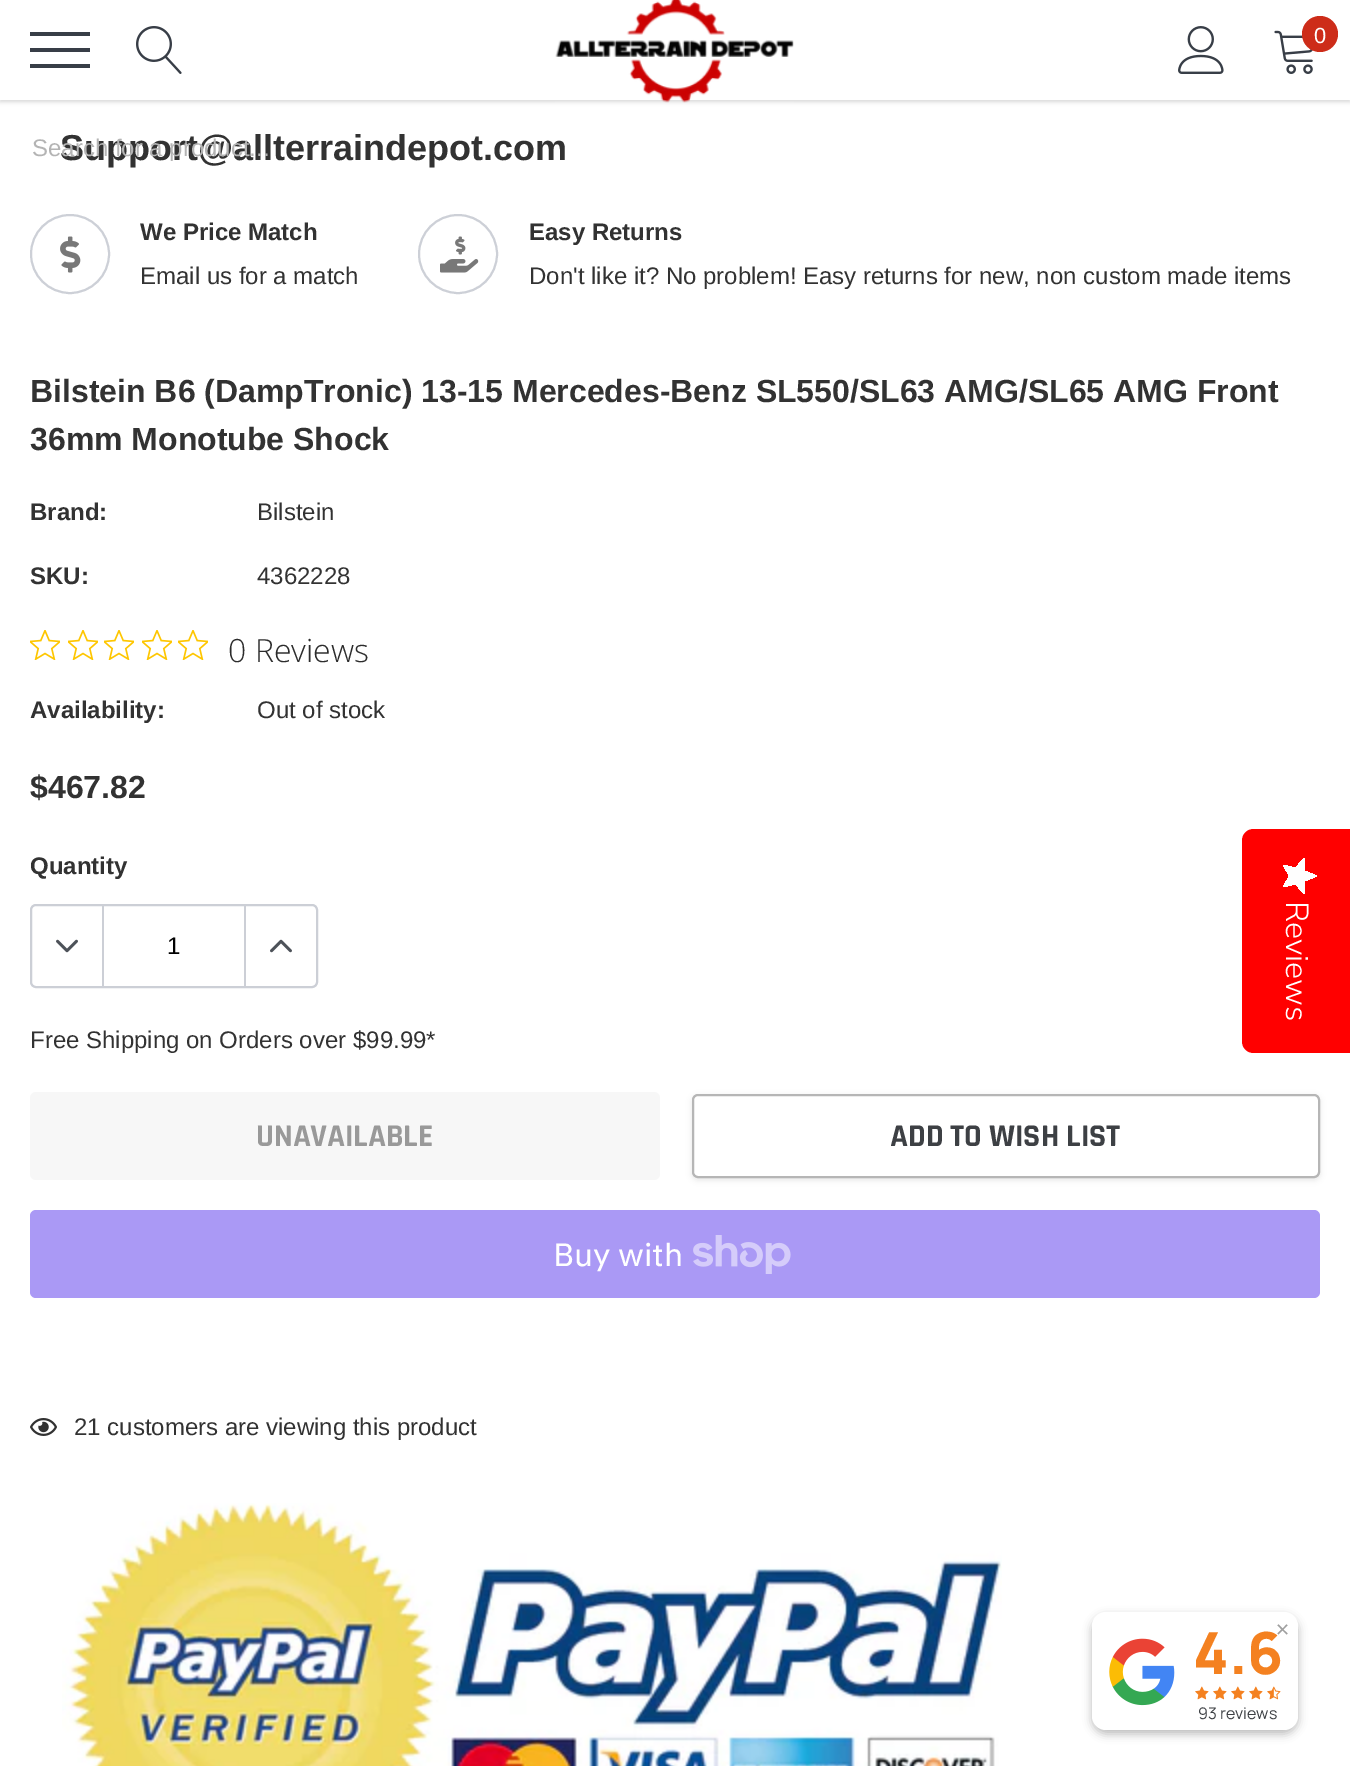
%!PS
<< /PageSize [1350 1766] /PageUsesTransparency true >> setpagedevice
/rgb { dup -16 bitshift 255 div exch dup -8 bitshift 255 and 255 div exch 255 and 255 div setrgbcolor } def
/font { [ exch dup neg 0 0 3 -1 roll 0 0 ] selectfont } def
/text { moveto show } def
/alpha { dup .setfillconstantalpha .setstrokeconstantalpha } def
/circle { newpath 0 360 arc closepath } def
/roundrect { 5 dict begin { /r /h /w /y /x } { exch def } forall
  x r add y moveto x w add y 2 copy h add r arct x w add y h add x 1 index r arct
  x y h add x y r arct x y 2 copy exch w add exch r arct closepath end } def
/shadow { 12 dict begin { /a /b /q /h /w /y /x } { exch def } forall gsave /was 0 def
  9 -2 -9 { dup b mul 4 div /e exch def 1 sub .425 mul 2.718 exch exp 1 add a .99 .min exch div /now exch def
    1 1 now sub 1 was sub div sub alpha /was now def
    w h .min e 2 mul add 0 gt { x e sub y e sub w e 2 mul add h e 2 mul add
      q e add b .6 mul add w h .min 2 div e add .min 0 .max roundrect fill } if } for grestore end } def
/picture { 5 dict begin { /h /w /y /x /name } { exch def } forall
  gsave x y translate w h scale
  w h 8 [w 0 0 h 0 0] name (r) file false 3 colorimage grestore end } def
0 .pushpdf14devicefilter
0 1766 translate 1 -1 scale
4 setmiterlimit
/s1 { /Arimo-Regular 22 font 16#FFFFFF rgb } def
/s2 { /Arimo-Bold 36 font 16#323232 rgb } def
/s3 { /Arimo-Regular 24 font 16#B4B4B4 rgb } def
/s4 { /Arimo-Bold 24 font 16#323232 rgb } def
/s5 { /Arimo-Regular 24 font 16#323232 rgb } def
/s6 { /Arimo-Bold 32 font 16#323232 rgb } def
/s7 { /OpenSans-Light 32 font 16#2C2C2C rgb } def
/s8 { /Arimo-Regular 24 font 16#000000 rgb } def
/s9 { /Rajdhani-Bold 32 font 16#999999 rgb } def
/s10 { /Rajdhani-Bold 32 font 16#3D4044 rgb } def
/s11 { /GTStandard-Regular 32 font 16#FFFFFF rgb } def
/s12 { /DejaVuSans-Regular 18 font 16#A0A0A0 rgb } def
/s13 { /Manrope-ExtraBold 58 font 16#F48120 rgb } def
/s14 { /Manrope-Regular 16 font 16#3D4044 rgb } def
16#FFFFFF rgb
0 0 1350 1766 rectfill
16#000000 rgb
0 2 1350 100 0 2 0.15 shadow
16#FFFFFF rgb
0 0 1350 100 rectfill
(pic1.raw) 555 0 239 103 picture
(pic2.raw) 1178 26 46 48 picture
(pic3.raw) 1274 30 39 44 picture
16#CD2C19 rgb
1320 34 18 circle fill
s1
(0) 1314 43 text
16#383E47 rgb
30 48 60 4 rectfill
30 32 60 4 rectfill
30 64 60 4 rectfill
(pic4.raw) 136 26 46 48 picture
s2
(Support@allterraindepot.com) 60 160 text
s3
(Search for a product...) 32 156 text
16#CDD0D7 rgb
2 setlinewidth
70 254 39 circle stroke
(pic5.raw) 60 236 21 37 picture
s4
(We Price Match) 140 240 text
s5
(Email us for a match) 140 284 text
16#CDD0D7 rgb
458 254 39 circle stroke
(pic6.raw) 440 236 39 37 picture
s4
(Easy Returns) 529 240 text
s5
(Don't like it? No problem! Easy returns for new, non custom made items) 529 284 text
s6
(Bilstein B6 \(DampTronic\) 13-15 Mercedes-Benz SL550/SL63 AMG/SL65 AMG Front) 30 402 text
(36mm Monotube Shock) 30 450 text
s4
(Brand:) 30 520 text
s5
(Bilstein) 257 520 text
s4
(SKU:) 30 584 text
s5
(4362228) 257 584 text
(pic7.raw) 30 630 30 30 picture
(pic7.raw) 68 630 30 30 picture
(pic7.raw) 104 630 30 30 picture
(pic7.raw) 142 630 30 30 picture
(pic7.raw) 178 630 30 30 picture
s7
(0 Reviews) 228 662 text
s4
(Availability:) 30 718 text
s5
(Out of stock) 257 718 text
s6
($467.82) 30 798 text
s4
(Quantity) 30 874 text
16#CCCFD6 rgb
31 905 286 82 5 roundrect stroke
102 906 2 80 rectfill
(pic8.raw) 56 939 22 14 picture
s8
(1) 167 954 text
16#CCCFD6 rgb
244 906 2 80 rectfill
(pic9.raw) 270 939 22 14 picture
s5
(Free Shipping on Orders over $99.99*) 30 1048 text
16#F7F7F7 rgb
30 1092 630 88 6 roundrect fill
s9
(UNAVAILABLE) 256 1146 text
gsave
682 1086 moveto 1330 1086 lineto 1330 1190 lineto 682 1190 lineto closepath 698 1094 moveto 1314 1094 lineto 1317.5 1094 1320 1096.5 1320 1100 curveto 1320 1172 lineto 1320 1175.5 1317.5 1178 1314 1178 curveto 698 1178 lineto 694.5 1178 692 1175.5 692 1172 curveto 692 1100 lineto 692 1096.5 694.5 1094 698 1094 curveto closepath eoclip newpath
16#000000 rgb
692 1096 628 84 6 3 0.1 shadow
grestore
16#B6B6B6 rgb
693 1095 626 82 5 roundrect stroke
s10
(ADD TO WISH LIST) 890 1146 text
16#AA99F5 rgb
30 1210 1290 88 6 roundrect fill
s11
(Buy with) 553 1266 text
(pic10.raw) 693 1235 98 39 picture
(pic11.raw) 30 1418 27 18 picture
s5
(21 customers are viewing this product) 74 1435 text
(pic12.raw) 62 1503 940 263 picture
16#FF0000 rgb
1350 829 moveto 1350 1053 lineto 1254 1053 lineto 1247 1053 1242 1048 1242 1041 curveto 1242 841 lineto 1242 834 1247 829 1254 829 curveto closepath fill
gsave 1289.5 876 moveto 1283 887 lineto 1295.5 884 lineto 1304 894 lineto 1305 881 lineto 1317 876 lineto 1305 871 lineto 1304 858 lineto 1295.5 868 lineto 1283 865 lineto closepath clip newpath
<< /ShadingType 2 /ColorSpace /DeviceRGB /Coords [1317 858 1317 894] /Extend [true true] /Function << /FunctionType 2 /Domain [0 1] /C0 [0.996 0.996 0.996] /C1 [0.996 0.996 0.996] /N 1 >> >> shfill grestore
/NunitoSans-Light 32 font
16#FFFFFF rgb
gsave 1286 901 translate 90 rotate 0 0 moveto (Reviews) show grestore
16#000000 rgb
1092 1616 206 118 14 4.5 0.26 shadow
16#FFFFFF rgb
1092 1612 206 118 14 roundrect fill
s12
(✕) 1275 1636 text
(pic13.raw) 1109 1638 66 68 picture
s13
(4.6) 1193 1674 text
(pic14.raw) 1195 1686 14 14 picture
(pic14.raw) 1213 1686 14 14 picture
(pic14.raw) 1231 1686 14 14 picture
(pic14.raw) 1249 1686 14 14 picture
(pic15.raw) 1267 1686 14 14 picture
s14
(93 reviews) 1198 1719 text
.poppdf14devicefilter showpage
